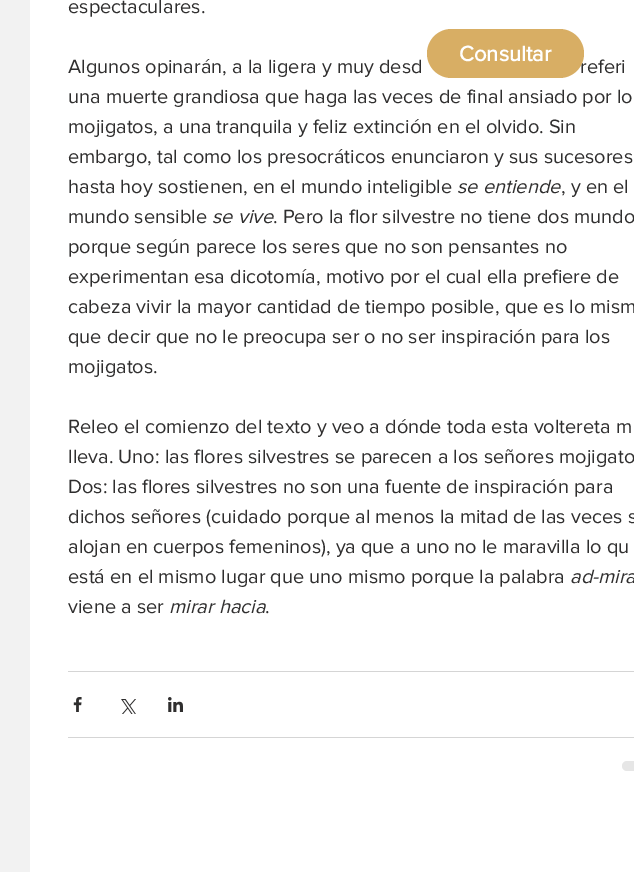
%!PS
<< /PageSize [634 872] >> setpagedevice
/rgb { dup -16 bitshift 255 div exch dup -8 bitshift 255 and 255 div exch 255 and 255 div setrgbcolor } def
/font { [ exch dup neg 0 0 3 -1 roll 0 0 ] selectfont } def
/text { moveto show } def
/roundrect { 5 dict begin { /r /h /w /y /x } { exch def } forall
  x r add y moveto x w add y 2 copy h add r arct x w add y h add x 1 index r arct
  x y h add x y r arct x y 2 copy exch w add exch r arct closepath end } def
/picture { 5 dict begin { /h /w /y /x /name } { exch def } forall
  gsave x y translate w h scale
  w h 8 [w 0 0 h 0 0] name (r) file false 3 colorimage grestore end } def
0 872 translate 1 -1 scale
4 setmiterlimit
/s1 { /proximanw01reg-Regular 20 font 16#2F2E2E rgb } def
/s2 { /proximanw01reg-Italic 20 font 16#2F2E2E rgb } def
/s3 { /proximanw01reg-Bold 22 font 16#FFFFFF rgb } def
16#F2F2F2 rgb
0 0 634 872 rectfill
16#FFFFFF rgb
30 0 604 872 rectfill
s1
(espectaculares.) 68 13 text
(Algunos opinarán, a la ligera y muy desd) 68 73 text
(referi) 580 73 text
(una muerte grandiosa que haga las veces de final ansiado por lo) 68 103 text
(mojigatos, a una tranquila y feliz extinción en el olvido. Sin) 68 133 text
(embargo, tal como los presocráticos enunciaron y sus sucesores) 68 163 text
(hasta hoy sostienen, en el mundo inteligible) 68 193 text
s2
(se entiende) 457 193 text
s1
(, y en el) 561 193 text
(mundo sensible) 68 223 text
s2
(se vive) 212 223 text
s1
(. Pero la flor silvestre no tiene dos mundo) 273 223 text
(porque según parece los seres que no son pensantes no) 68 253 text
(experimentan esa dicotomía, motivo por el cual ella prefiere de) 68 283 text
(cabeza vivir la mayor cantidad de tiempo posible, que es lo mism) 68 313 text
(que decir que no le preocupa ser o no ser inspiración para los) 68 343 text
(mojigatos.) 68 373 text
(Releo el comienzo del texto y veo a dónde toda esta voltereta m) 68 433 text
(lleva. Uno: las flores silvestres se parecen a los señores mojigato) 68 463 text
(Dos: las flores silvestres no son una fuente de inspiración para) 68 493 text
(dichos señores \(cuidado porque al menos la mitad de las veces s) 68 523 text
(alojan en cuerpos femeninos\), ya que a uno no le maravilla lo qu) 68 553 text
(está en el mismo lugar que uno mismo porque la palabra) 68 583 text
s2
(ad-mira) 570 583 text
s1
(viene a ser) 68 613 text
s2
(mirar hacia) 169 613 text
s1
(.) 265 613 text
16#D5D5D5 rgb
68 671 566 1 rectfill
(pic1.raw) 73 697 9 15 picture
(pic2.raw) 121 699 15 15 picture
(pic3.raw) 168 697 15 15 picture
68 737 566 1 rectfill
16#E6E6E6 rgb
622 761 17 10 5 roundrect fill
16#D8AE64 rgb
427 29 157 49 24.5 roundrect fill
s3
(Consultar) 459 61 text
showpage
